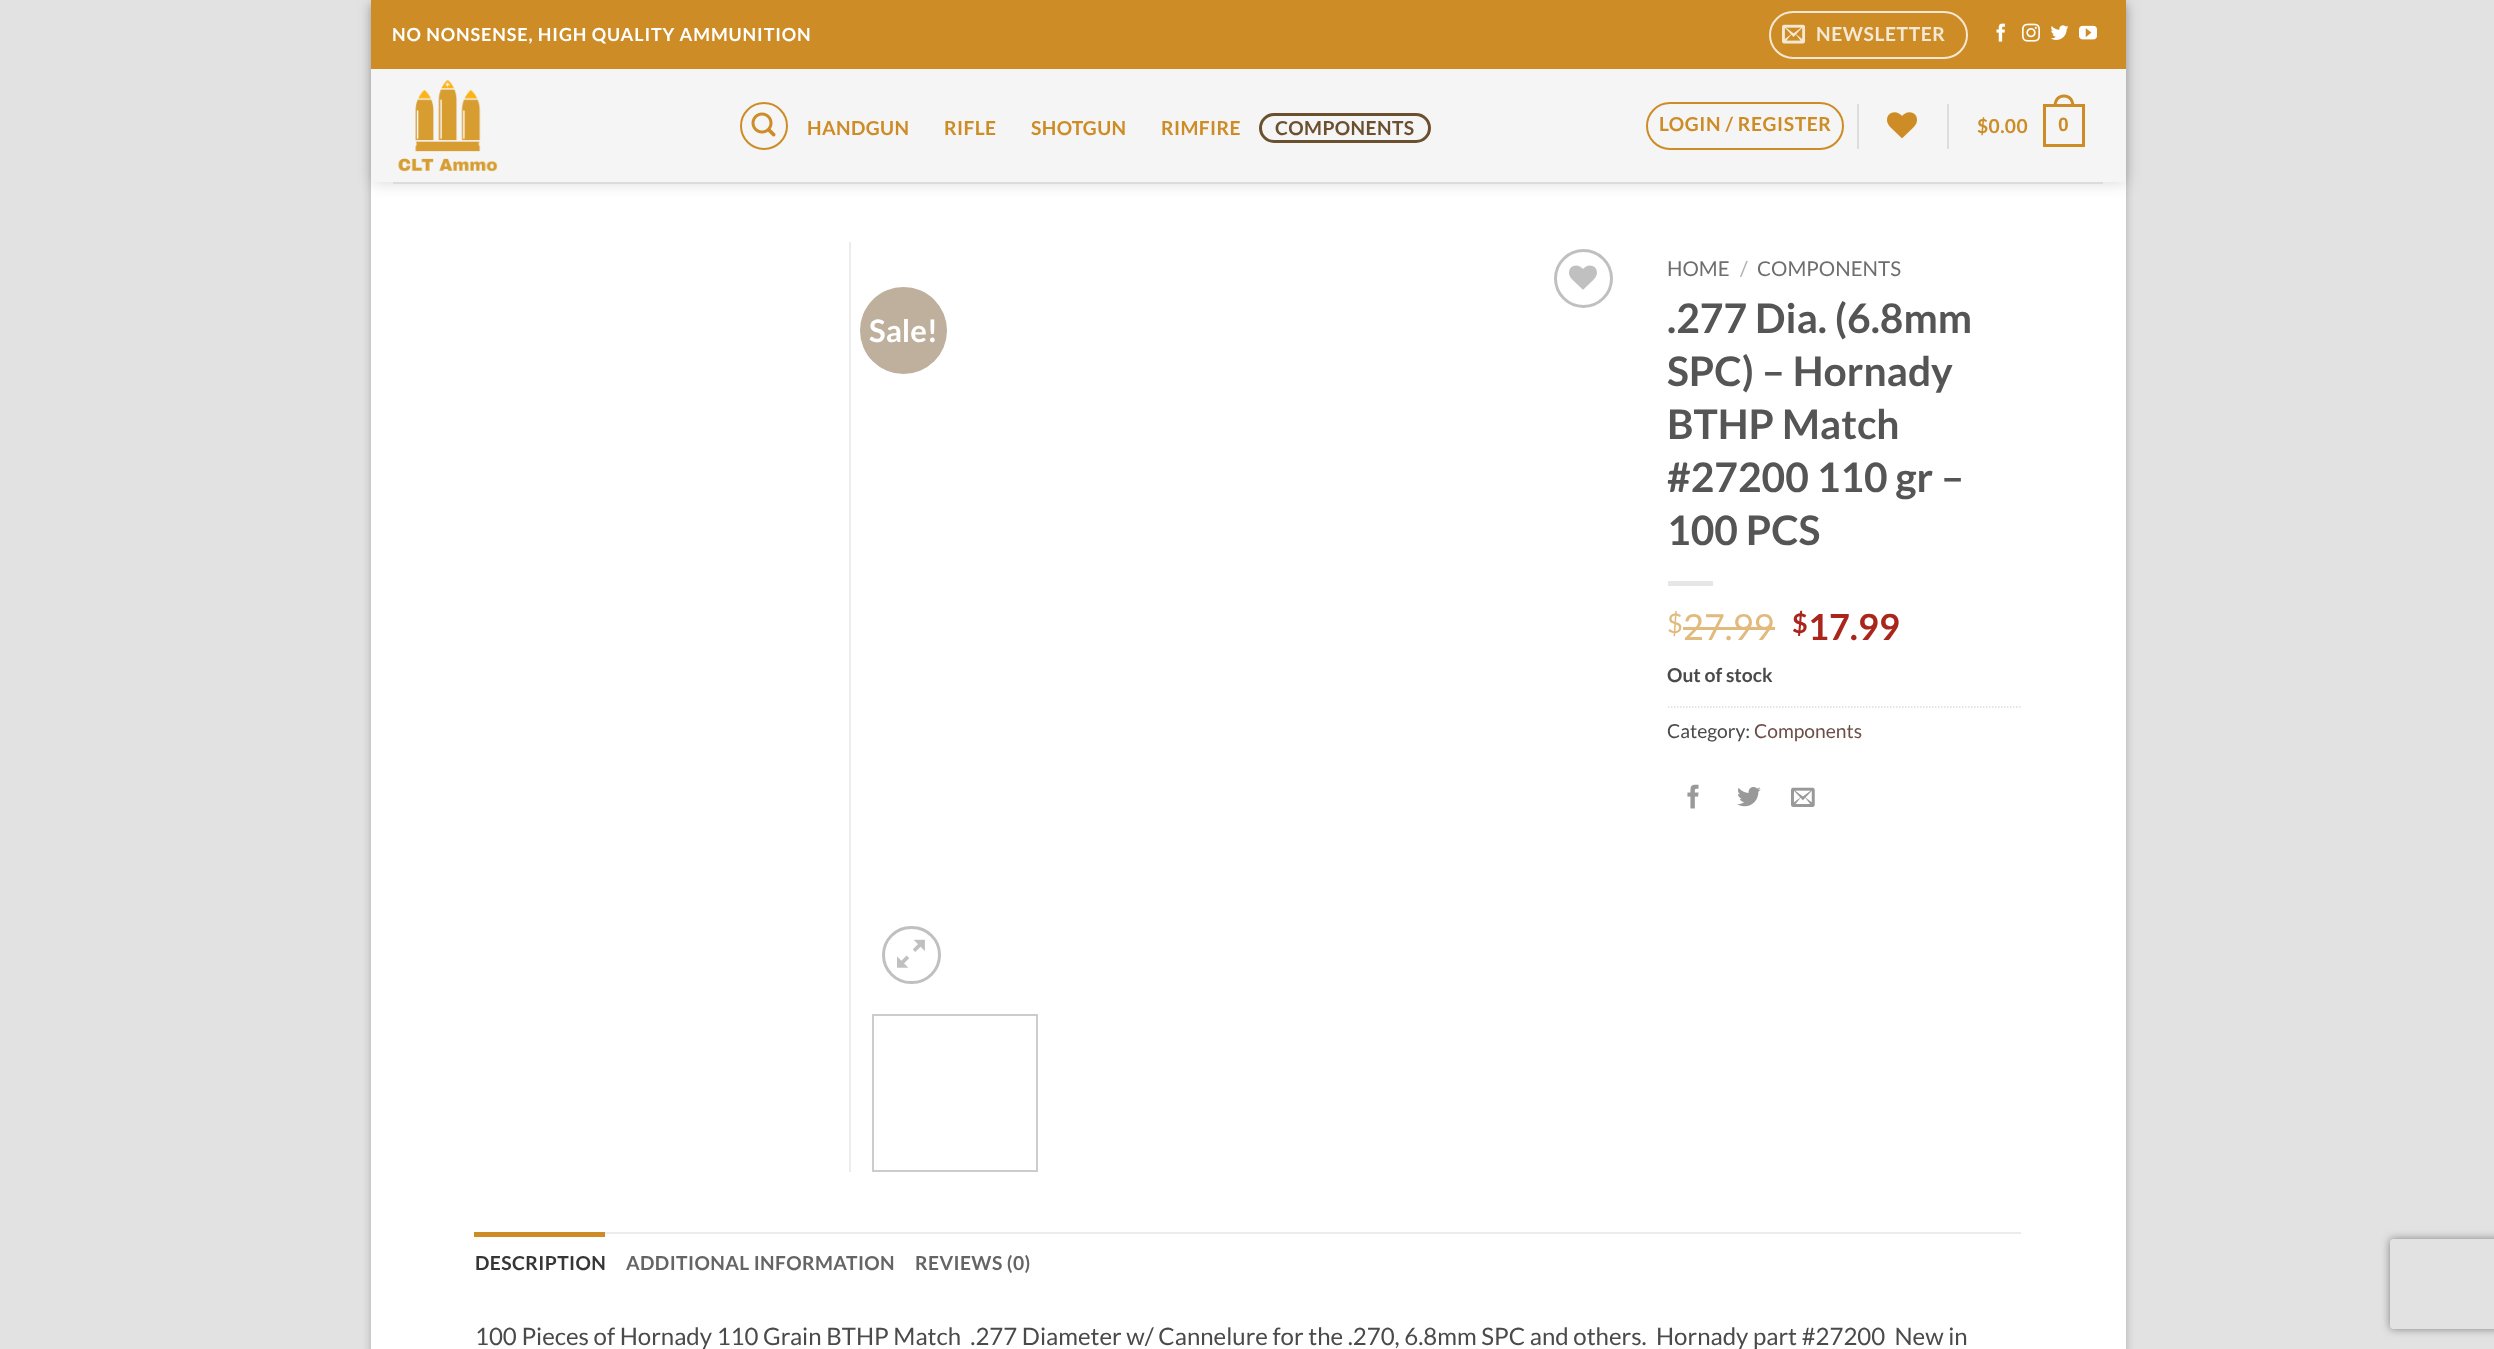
async function draw(canvas) {
	canvas.width = 2494;
	canvas.height = 1349;
	const c = canvas.getContext('2d');
	c.miterLimit = 4;
	c.fontKerning = 'normal';
	async function loadImage(src) {
		const img = new Image();
		img.src = src;
		await img.decode();
		return img;
	}

	c.fillStyle = '#e2e2e2';
	c.fillRect(0, 0, 2494, 1349);
	c.fillStyle = '#0000003b';
	c.filter = 'blur(4.5px)';
	c.beginPath();
	c.rect(371, 5, 1755, 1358);
	c.fill();
	c.filter = 'none';
	c.fillStyle = '#fff';
	c.fillRect(371, 69, 1755, 1280);
	c.save();
	c.beginPath();
	c.moveTo(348, 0);
	c.lineTo(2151, 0);
	c.lineTo(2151, 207);
	c.lineTo(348, 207);
	c.closePath();
	c.moveTo(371, 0);
	c.lineTo(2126, 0);
	c.lineTo(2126, 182);
	c.lineTo(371, 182);
	c.closePath();
	c.clip('evenodd');
	c.fillStyle = '#00000026';
	c.filter = 'blur(7.5px)';
	c.beginPath();
	c.rect(372, 2, 1755, 181);
	c.fill();
	c.filter = 'none';
	c.restore();
	c.fillStyle = '#cd8c26';
	c.fillRect(371, 0, 1755, 69);
	c.letterSpacing = '0.9px';
	c.font = 'bold 18px Lato';
	c.fillStyle = '#fff';
	c.fillText('NO NONSENSE, HIGH QUALITY AMMUNITION', 392, 41);
	c.beginPath();
	c.roundRect(1770, 12, 197, 46, 23);
	c.strokeStyle = '#f5e8d4';
	c.lineWidth = 2;
	c.stroke();
	c.drawImage(await loadImage('img1.png'), 1782, 24, 24, 20);
	c.letterSpacing = '0.6px';
	c.font = 'bold 19.25px Lato';
	c.fillStyle = '#f5e8d4';
	c.fillText('NEWSLETTER', 1816, 41);
	c.drawImage(await loadImage('img2.png'), 1996, 23, 9, 19);
	c.drawImage(await loadImage('img3.png'), 2022, 23, 18, 19);
	c.drawImage(await loadImage('img4.png'), 2050, 25, 19, 15);
	c.drawImage(await loadImage('img5.png'), 2079, 25, 18, 15);
	c.fillStyle = '#f4f4f4e6';
	c.fillRect(371, 69, 1755, 113);
	c.drawImage(await loadImage('img6.png'), 398, 79, 100, 93);
	c.beginPath();
	c.arc(764, 126, 23, 0, 2 * Math.PI);
	c.strokeStyle = '#cd8c26';
	c.stroke();
	c.drawImage(await loadImage('img7.png'), 751, 112, 25, 25);
	c.letterSpacing = '0.4px';
	c.fillStyle = '#cd8c26';
	for (const [text, x, y] of [
		['HANDGUN', 807, 135],
		['RIFLE', 944, 135],
		['SHOTGUN', 1031, 135],
		['RIMFIRE', 1161, 135],
	]) {
		c.fillText(text, x, y);
	}
	c.beginPath();
	c.roundRect(1260.5, 114.5, 169, 27, 13.5);
	c.strokeStyle = '#6a502e';
	c.lineWidth = 3;
	c.stroke();
	c.fillStyle = '#6a502e';
	c.fillText('COMPONENTS', 1275, 135);
	c.beginPath();
	c.roundRect(1647, 103, 196, 46, 23);
	c.strokeStyle = '#cd8c26';
	c.lineWidth = 2;
	c.stroke();
	c.letterSpacing = '0.6px';
	c.fillStyle = '#cd8c26';
	c.fillText('LOGIN / REGISTER', 1659, 131);
	c.fillStyle = '#ddd';
	c.fillRect(1857, 104, 2, 45);
	c.drawImage(await loadImage('img8.png'), 1887, 112, 30, 26);
	c.fillRect(1947, 104, 2, 45);
	c.letterSpacing = '0.4px';
	c.fillStyle = '#cd8c26';
	c.fillText('$0.00', 1977, 133);
	c.lineWidth = 3;
	c.strokeRect(2044.5, 105.5, 39, 40);
	c.beginPath();
	c.moveTo(2064, 94.5);
	c.bezierCurveTo(2071, 94.5, 2074.5, 100, 2074.5, 106.5);
	c.lineTo(2053.5, 106.5);
	c.bezierCurveTo(2053.5, 100, 2057, 94.5, 2064, 94.5);
	c.closePath();
	c.moveTo(2064, 97.5);
	c.bezierCurveTo(2069.5, 97.5, 2071.5, 102, 2071.5, 106.5);
	c.lineTo(2056.5, 106.5);
	c.bezierCurveTo(2056.5, 102, 2058.5, 97.5, 2064, 97.5);
	c.closePath();
	c.fill('evenodd');
	c.font = 'bold 19.25px Liberation Sans';
	c.fillText('0', 2058, 131);
	c.fillStyle = '#dcdcdc';
	c.fillRect(393, 182, 1710, 2);
	c.fillStyle = '#ececec';
	c.fillRect(849, 242, 2, 930);
	c.beginPath();
	c.arc(1583.5, 278.5, 28, 0, 2 * Math.PI);
	c.strokeStyle = '#c0c0c0';
	c.stroke();
	c.drawImage(await loadImage('img9.png'), 1569, 265, 28, 25);
	c.fillStyle = '#beb09c';
	c.beginPath();
	c.arc(903.5, 330.5, 43.5, 0, 2 * Math.PI);
	c.fill();
	c.letterSpacing = '0px';
	c.font = 'bold 31px Lato';
	c.fillStyle = '#fff';
	c.fillText('Sale!', 869, 342);
	c.beginPath();
	c.roundRect(883.5, 927.5, 56, 55, 27.5);
	c.stroke();
	c.drawImage(await loadImage('img10.png'), 897, 939, 28, 29);
	c.strokeStyle = '#ccc';
	c.lineWidth = 2;
	c.strokeRect(873, 1015, 164, 156);
	c.font = '20.5px Lato';
	c.fillStyle = '#6e6e6e';
	c.fillText('HOME', 1667, 276);
	c.fillStyle = '#b2b2b2';
	c.fillText('/', 1740, 276);
	c.fillStyle = '#6e6e6e';
	c.fillText('COMPONENTS', 1757, 276);
	c.font = 'bold 40.75px Lato';
	c.fillStyle = '#555';
	for (const [text, x, y] of [
		['.277 Dia. (6.8mm', 1667, 333],
		['SPC) – Hornady', 1667, 386],
		['BTHP Match', 1667, 439],
		['#27200 110 gr –', 1667, 492],
		['100 PCS', 1667, 545],
	]) {
		c.fillText(text, x, y);
	}
	c.fillStyle = '#e6e6e6';
	c.fillRect(1668, 581, 45, 5);
	c.font = '27px Lato';
	c.fillStyle = '#e1ba7d';
	c.fillText('$', 1667, 633);
	c.font = '36px Lato';
	c.fillText('27.99', 1683, 640);
	c.fillRect(1683, 627, 92, 3);
	c.font = 'bold 27px Lato';
	c.fillStyle = '#aa261c';
	c.fillText('$', 1792, 633);
	c.font = 'bold 36px Lato';
	c.fillText('17.99', 1808, 640);
	c.font = 'bold 19.25px Lato';
	c.fillStyle = '#4a4a4a';
	c.fillText('Out of stock', 1667, 682);
	c.beginPath();
	c.moveTo(1668, 707);
	c.lineTo(2020.5, 707);
	c.strokeStyle = '#ddd';
	c.lineWidth = 1.5;
	c.setLineDash([1.5, 1.5]);
	c.stroke();
	c.font = '19.25px Lato';
	c.fillText('Category:', 1667, 738);
	c.fillStyle = '#6b4e46';
	c.fillText('Components', 1754, 738);
	c.drawImage(await loadImage('img11.png'), 1687, 784, 12, 25);
	c.drawImage(await loadImage('img12.png'), 1737, 787, 24, 20);
	c.drawImage(await loadImage('img13.png'), 1791, 787, 24, 20);
	c.fillStyle = '#ececec';
	c.fillRect(605, 1232, 1416, 2);
	c.fillStyle = '#cd8c26';
	c.fillRect(474, 1232, 131, 5);
	c.letterSpacing = '0.4px';
	c.font = 'bold 19.25px Lato';
	c.fillStyle = '#363636';
	c.fillText('DESCRIPTION', 475, 1270);
	c.fillStyle = '#656565';
	c.fillText('ADDITIONAL INFORMATION', 626, 1270);
	c.fillText('REVIEWS (0)', 915, 1270);
	c.letterSpacing = '0px';
	c.font = '24px Lato';
	c.fillStyle = '#4a4a4a';
	c.fillText('100 Pieces of Hornady 110 Grain BTHP Match  .277 Diameter w/ Cannelure for the .270, 6.8mm SPC and others.  Hornady part #27200  New in', 475, 1345);
	c.save();
	c.beginPath();
	c.moveTo(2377, 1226);
	c.lineTo(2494, 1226);
	c.lineTo(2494, 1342);
	c.lineTo(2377, 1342);
	c.closePath();
	c.moveTo(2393, 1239);
	c.lineTo(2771, 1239);
	c.bezierCurveTo(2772.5, 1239, 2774, 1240.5, 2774, 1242);
	c.lineTo(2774, 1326);
	c.bezierCurveTo(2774, 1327.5, 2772.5, 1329, 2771, 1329);
	c.lineTo(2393, 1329);
	c.bezierCurveTo(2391.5, 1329, 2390, 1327.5, 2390, 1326);
	c.lineTo(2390, 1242);
	c.bezierCurveTo(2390, 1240.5, 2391.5, 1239, 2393, 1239);
	c.closePath();
	c.clip('evenodd');
	c.fillStyle = '#808080';
	c.filter = 'blur(4px)';
	c.beginPath();
	c.roundRect(2390, 1239, 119, 90, 3);
	c.fill();
	c.filter = 'none';
	c.restore();
}

draw(document.querySelector('canvas'));
